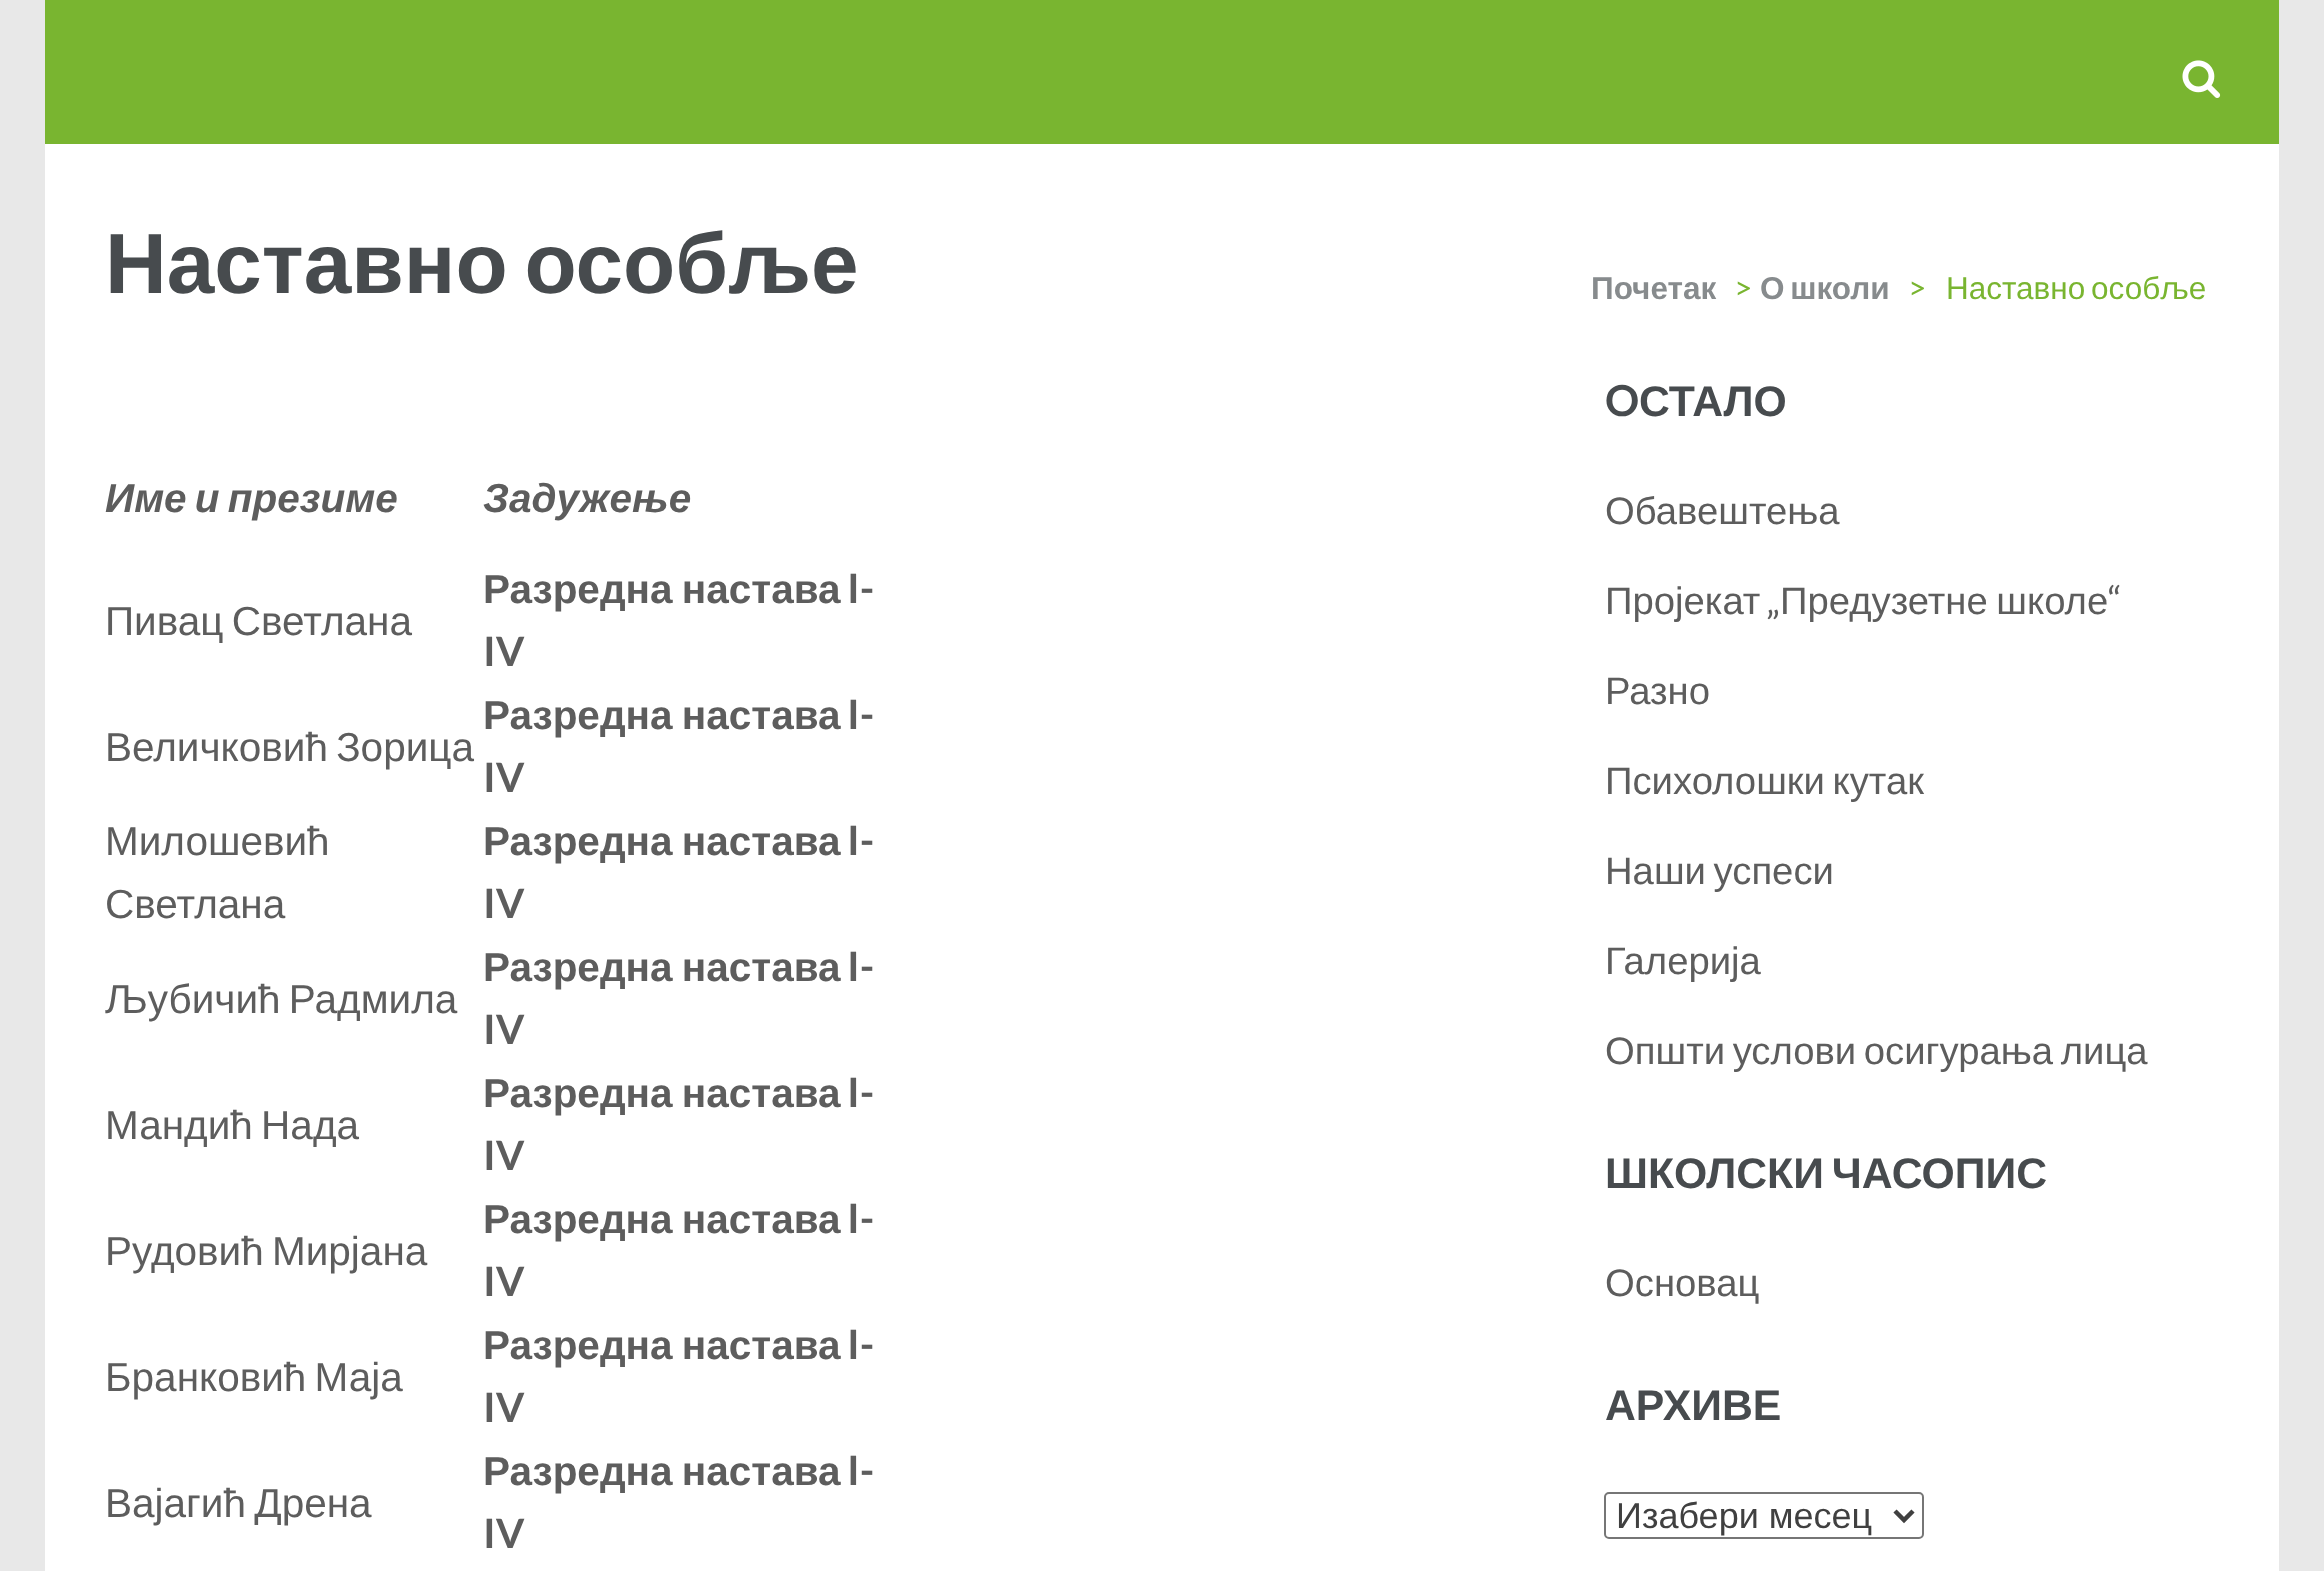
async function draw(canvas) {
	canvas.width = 2324;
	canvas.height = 1571;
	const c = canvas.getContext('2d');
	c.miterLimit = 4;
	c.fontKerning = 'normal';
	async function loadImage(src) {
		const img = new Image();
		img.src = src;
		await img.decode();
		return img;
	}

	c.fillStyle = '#e8e8e8';
	c.fillRect(0, 0, 2324, 1571);
	c.fillStyle = '#fff';
	c.fillRect(45, 144, 2234, 1427);
	c.fillStyle = '#79b530';
	c.fillRect(45, 0, 2234, 144);
	c.drawImage(await loadImage('img1.png'), 2182, 60, 39, 38);
	c.wordSpacing = '-7px';
	c.font = 'bold 85.5px Liberation Sans';
	c.fillStyle = '#474b4e';
	c.fillText('Наставно особље', 105, 293);
	c.wordSpacing = '0px';
	c.font = 'bold 31.5px Liberation Sans';
	c.fillStyle = '#878b8d';
	c.fillText('Почетак', 1591, 299);
	c.font = '31.5px Lato';
	c.fillStyle = '#79b530';
	c.fillText('>', 1734, 299);
	c.wordSpacing = '-3px';
	c.font = 'bold 31.5px Liberation Sans';
	c.fillStyle = '#878b8d';
	c.fillText('О школи', 1760, 299);
	c.wordSpacing = '0px';
	c.font = '31.5px Lato';
	c.fillStyle = '#79b530';
	c.fillText('>', 1908, 299);
	c.wordSpacing = '-3px';
	c.font = '31.5px Liberation Sans';
	c.fillText('Наставно особље', 1946, 299);
	c.font = 'italic bold 40.5px Liberation Sans';
	c.fillStyle = '#5d5d5d';
	c.fillText('Име и презиме', 105, 512);
	c.wordSpacing = '0px';
	c.fillText('Задужење', 483, 512);
	c.wordSpacing = '-3px';
	c.font = '40.5px Liberation Sans';
	c.fillText('Пивац Светлана', 105, 635);
	c.wordSpacing = '-2px';
	c.font = 'bold 40.5px Liberation Sans';
	c.fillText('Разредна настава', 483, 603);
	c.wordSpacing = '0px';
	c.font = 'bold 40.5px Lato';
	c.fillText('I-', 847, 603);
	c.fillText('IV', 483, 666);
	c.wordSpacing = '-3px';
	c.font = '40.5px Liberation Sans';
	c.fillText('Величковић Зорица', 105, 761);
	c.wordSpacing = '-2px';
	c.font = 'bold 40.5px Liberation Sans';
	c.fillText('Разредна настава', 483, 729);
	c.wordSpacing = '0px';
	c.font = 'bold 40.5px Lato';
	c.fillText('I-', 847, 729);
	c.fillText('IV', 483, 792);
	c.font = '40.5px Liberation Sans';
	c.fillText('Милошевић', 105, 855);
	c.fillText('Светлана', 105, 918);
	c.wordSpacing = '-2px';
	c.font = 'bold 40.5px Liberation Sans';
	c.fillText('Разредна настава', 483, 855);
	c.wordSpacing = '0px';
	c.font = 'bold 40.5px Lato';
	c.fillText('I-', 847, 855);
	c.fillText('IV', 483, 918);
	c.wordSpacing = '-3px';
	c.font = '40.5px Liberation Sans';
	c.fillText('Љубичић Радмила', 105, 1013);
	c.wordSpacing = '-2px';
	c.font = 'bold 40.5px Liberation Sans';
	c.fillText('Разредна настава', 483, 981);
	c.wordSpacing = '0px';
	c.font = 'bold 40.5px Lato';
	c.fillText('I-', 847, 981);
	c.fillText('IV', 483, 1044);
	c.wordSpacing = '-3px';
	c.font = '40.5px Liberation Sans';
	c.fillText('Мандић Нада', 105, 1139);
	c.wordSpacing = '-2px';
	c.font = 'bold 40.5px Liberation Sans';
	c.fillText('Разредна настава', 483, 1107);
	c.wordSpacing = '0px';
	c.font = 'bold 40.5px Lato';
	c.fillText('I-', 847, 1107);
	c.fillText('IV', 483, 1170);
	c.wordSpacing = '-3px';
	c.font = '40.5px Liberation Sans';
	c.fillText('Рудовић Мирјана', 105, 1265);
	c.wordSpacing = '-2px';
	c.font = 'bold 40.5px Liberation Sans';
	c.fillText('Разредна настава', 483, 1233);
	c.wordSpacing = '0px';
	c.font = 'bold 40.5px Lato';
	c.fillText('I-', 847, 1233);
	c.fillText('IV', 483, 1296);
	c.wordSpacing = '-3px';
	c.font = '40.5px Liberation Sans';
	c.fillText('Бранковић Маја', 105, 1391);
	c.wordSpacing = '-2px';
	c.font = 'bold 40.5px Liberation Sans';
	c.fillText('Разредна настава', 483, 1359);
	c.wordSpacing = '0px';
	c.font = 'bold 40.5px Lato';
	c.fillText('I-', 847, 1359);
	c.fillText('IV', 483, 1422);
	c.wordSpacing = '-3px';
	c.font = '40.5px Liberation Sans';
	c.fillText('Вајагић Дрена', 105, 1517);
	c.wordSpacing = '-2px';
	c.font = 'bold 40.5px Liberation Sans';
	c.fillText('Разредна настава', 483, 1485);
	c.wordSpacing = '0px';
	c.font = 'bold 40.5px Lato';
	c.fillText('I-', 847, 1485);
	c.fillText('IV', 483, 1548);
	c.font = 'bold 42.75px Lato';
	c.fillStyle = '#474b4e';
	c.fillText('O', 1605, 416);
	c.font = 'bold 42.75px Liberation Sans';
	c.fillText('СТАЛО', 1639, 416);
	c.font = '38.25px Liberation Sans';
	c.fillStyle = '#5d5d5d';
	c.fillText('Обавештења', 1605, 524);
	c.fillText('Пројекат', 1605, 614);
	c.font = '38.25px Lato';
	c.fillText('„', 1766, 614);
	c.wordSpacing = '-2px';
	c.font = '38.25px Liberation Sans';
	c.fillText('Предузетне школе', 1780, 614);
	c.wordSpacing = '0px';
	c.font = '38.25px Lato';
	c.fillText('“', 2108, 614);
	c.font = '38.25px Liberation Sans';
	c.fillText('Разно', 1605, 704);
	c.wordSpacing = '-3px';
	c.fillText('Психолошки кутак', 1605, 794);
	c.fillText('Наши успеси', 1605, 884);
	c.wordSpacing = '0px';
	c.fillText('Галерија', 1605, 974);
	c.wordSpacing = '-3px';
	c.fillText('Општи услови осигурања лица', 1605, 1064);
	c.wordSpacing = '-4px';
	c.font = 'bold 42.75px Liberation Sans';
	c.fillStyle = '#474b4e';
	c.fillText('ШКОЛСКИ ЧАСОПИС', 1605, 1188);
	c.wordSpacing = '0px';
	c.font = '38.25px Liberation Sans';
	c.fillStyle = '#5d5d5d';
	c.fillText('Основац', 1605, 1296);
	c.font = 'bold 42.75px Liberation Sans';
	c.fillStyle = '#474b4e';
	c.fillText('АРХИВЕ', 1605, 1420);
	c.beginPath();
	c.roundRect(1605, 1493, 318, 45, 4);
	c.strokeStyle = '#767676';
	c.lineWidth = 2;
	c.stroke();
	c.beginPath();
	c.moveTo(1895, 1511);
	c.lineTo(1904, 1520);
	c.lineTo(1913, 1511);
	c.strokeStyle = '#404040';
	c.lineWidth = 4.5;
	c.stroke();
	c.font = '36px Liberation Sans';
	c.fillStyle = '#404040';
	c.fillText('Изабери месец', 1616, 1528);
}

draw(document.querySelector('canvas'));
